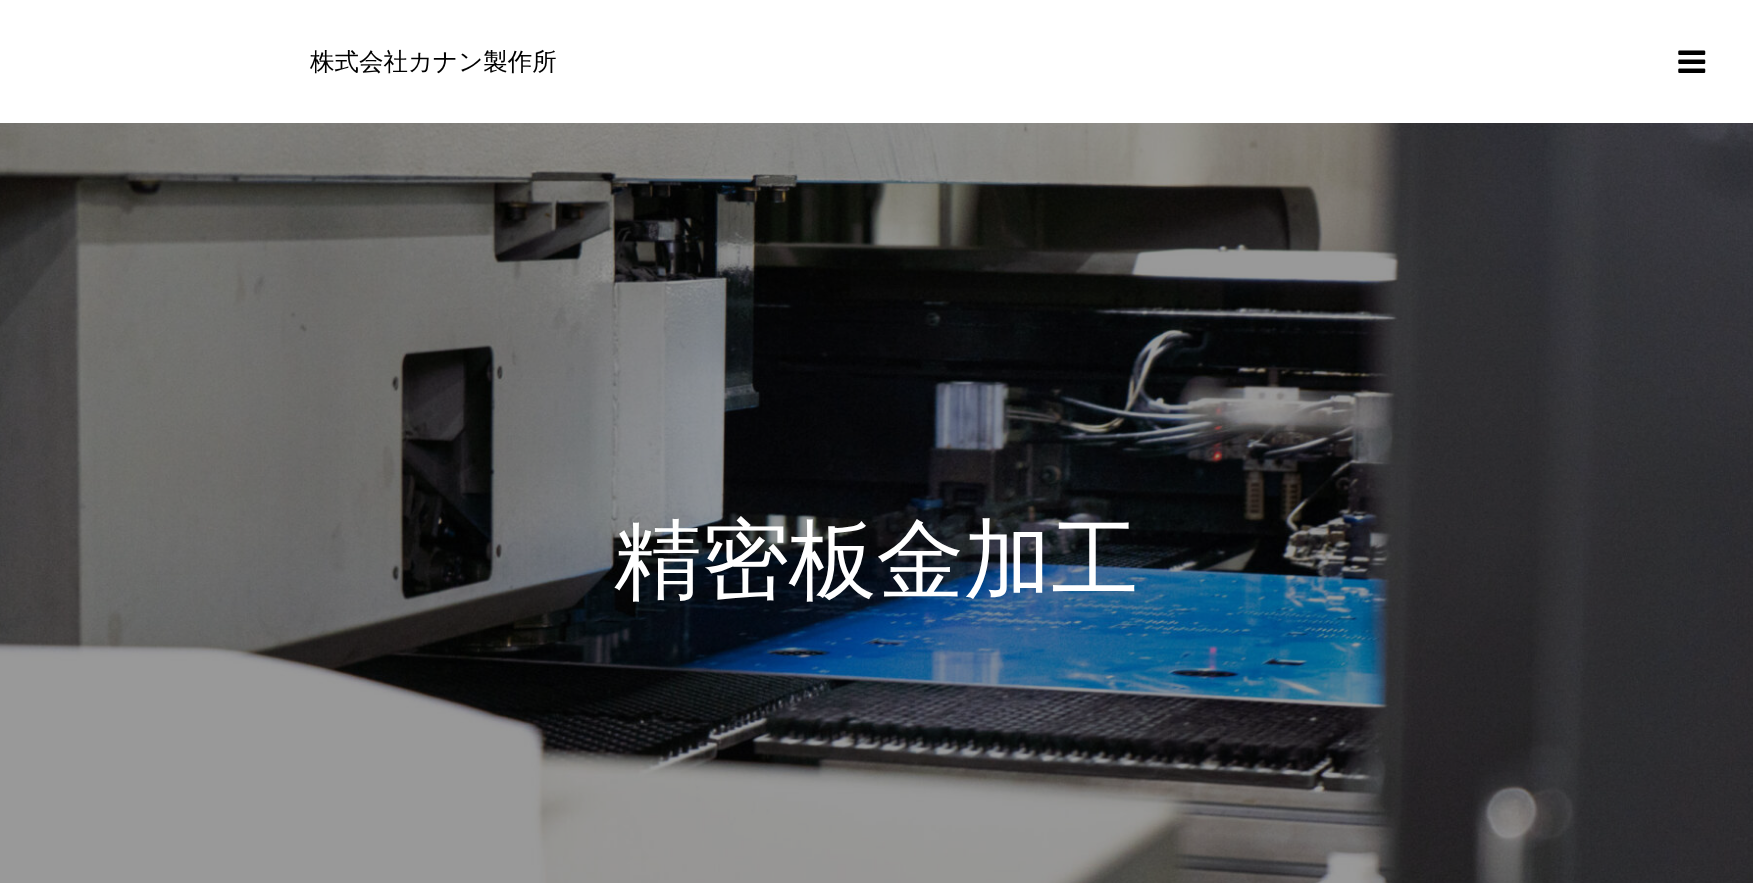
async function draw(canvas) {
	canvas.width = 1753;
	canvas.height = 883;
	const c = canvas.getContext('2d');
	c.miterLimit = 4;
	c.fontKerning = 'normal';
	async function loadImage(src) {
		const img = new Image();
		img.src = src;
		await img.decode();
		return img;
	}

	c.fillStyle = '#fff';
	c.fillRect(0, 0, 1753, 883);
	c.font = '500 24.5px WenQuanYi Zen Hei';
	c.fillStyle = '#000';
	c.fillText('株式会社カナン製作所', 310, 70);
	c.drawImage(await loadImage('img1.png'), 1678, 50, 28, 23);
	c.drawImage(await loadImage('img2.png'), 0, 123, 1753, 760);
	c.font = '500 87.5px WenQuanYi Zen Hei';
	c.fillStyle = '#fff';
	c.fillText('精密板金加工', 614, 590);
}

draw(document.querySelector('canvas'));
